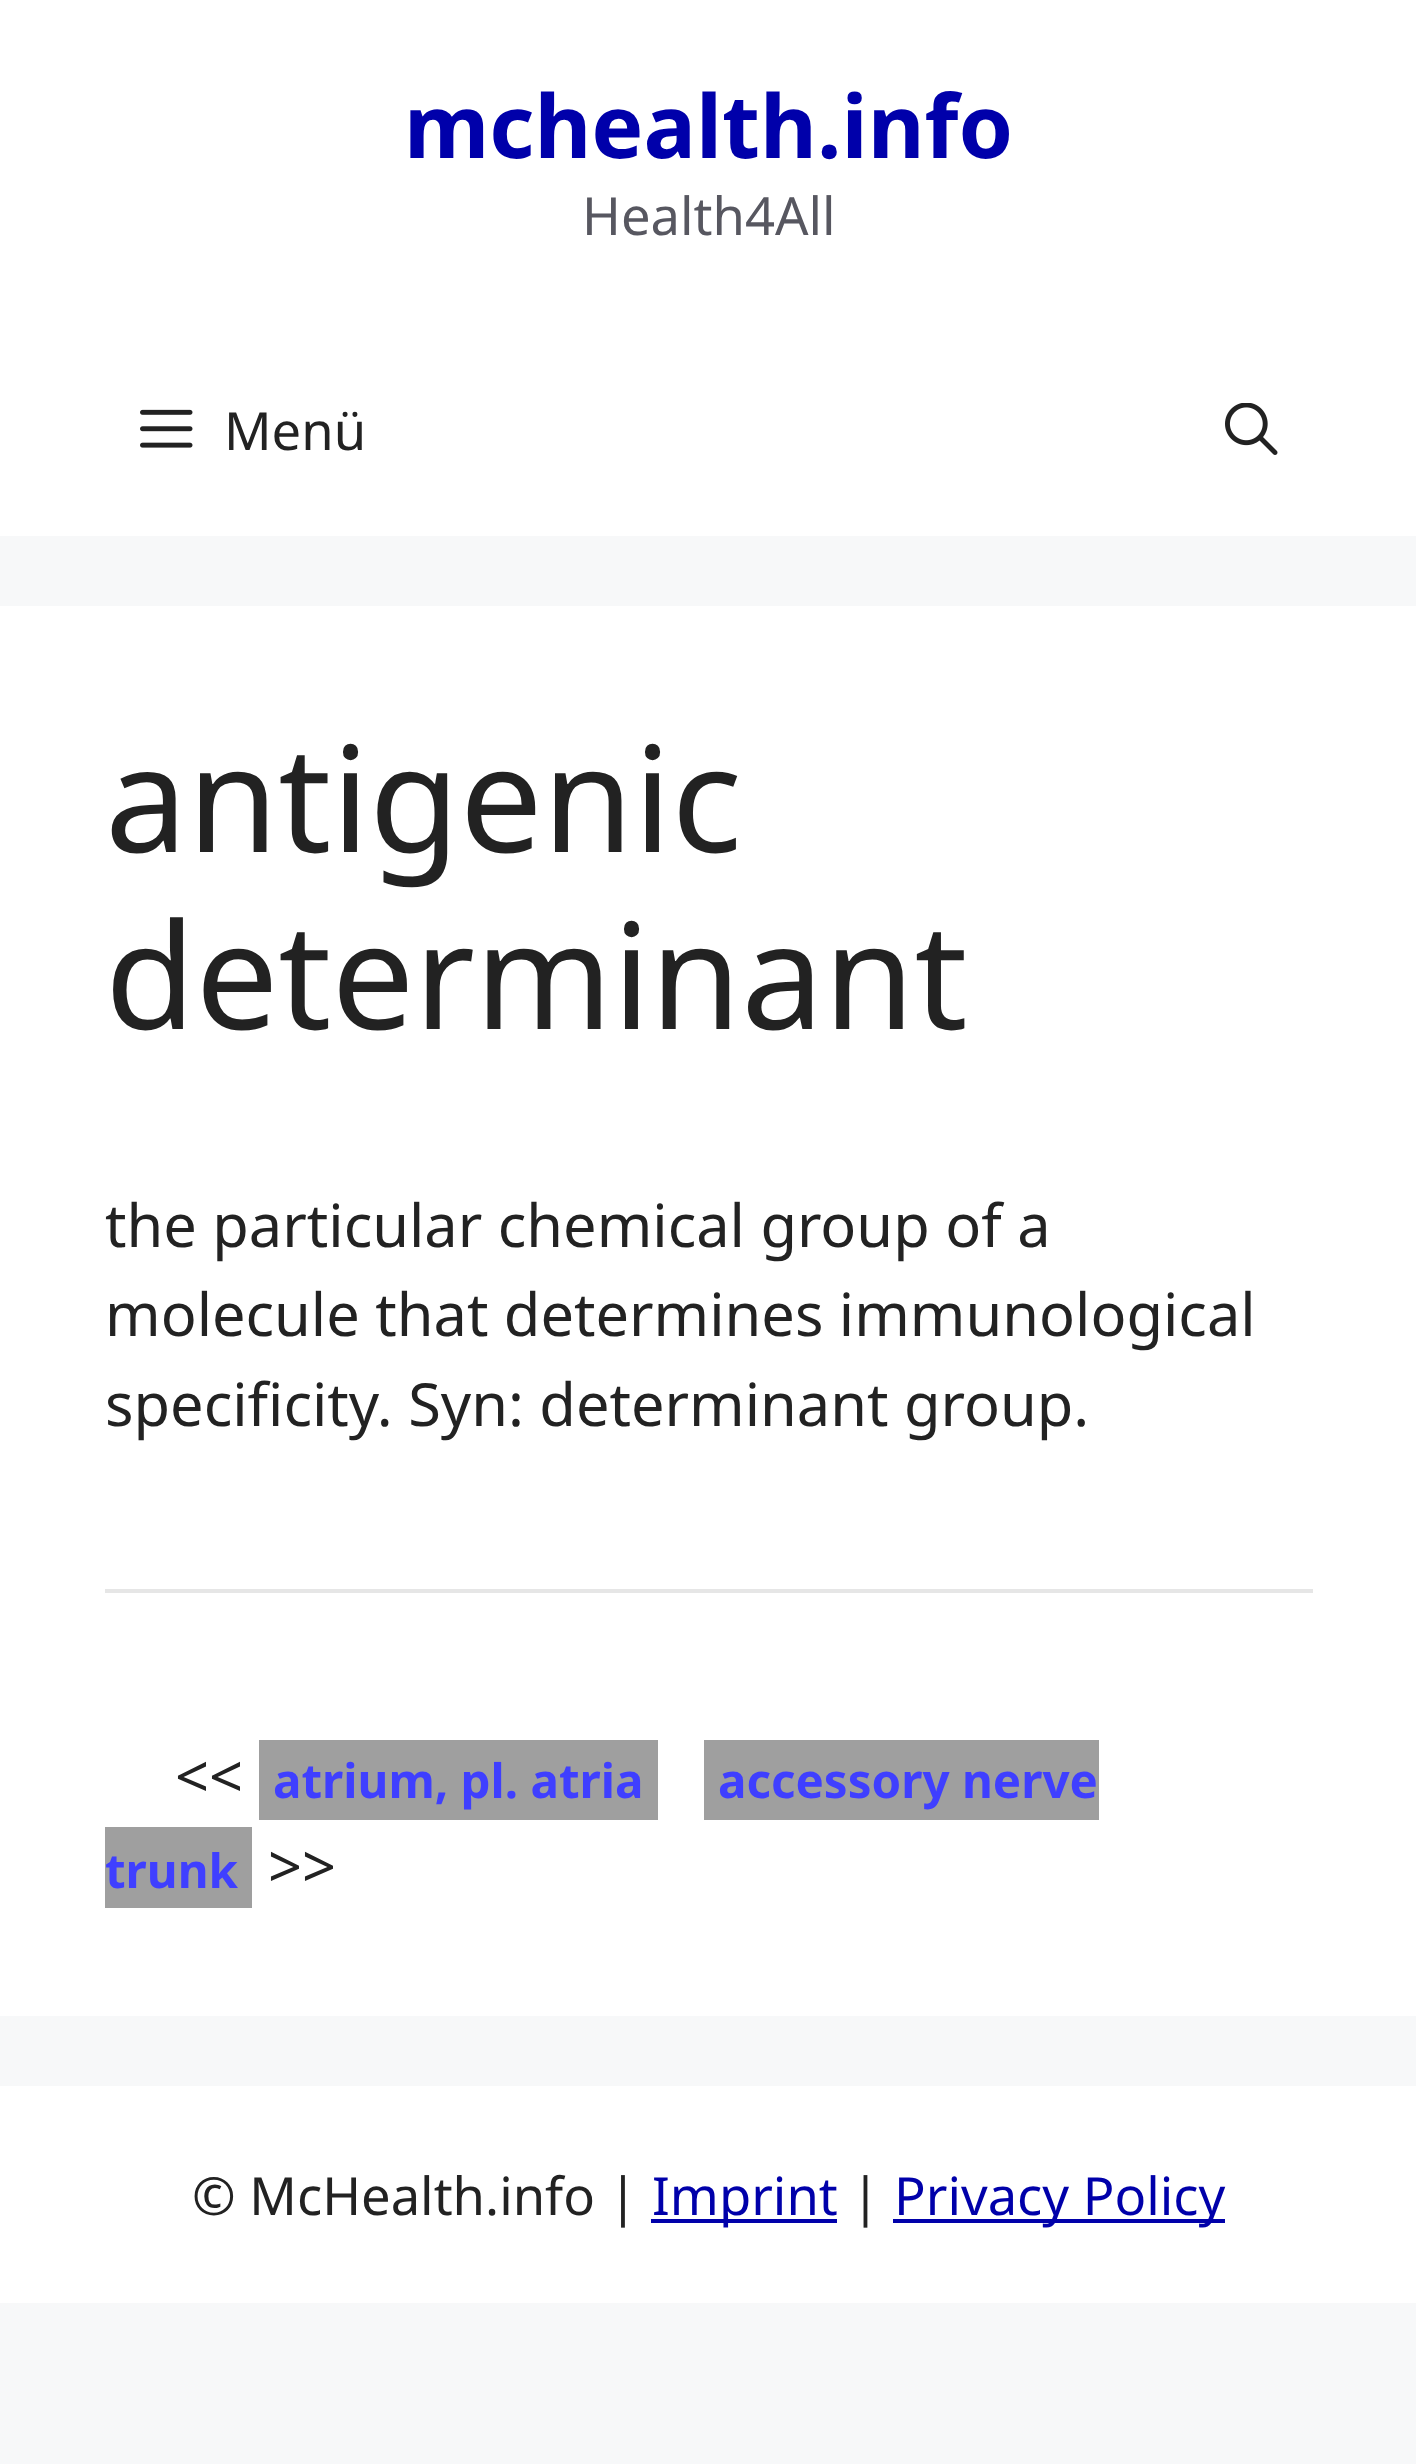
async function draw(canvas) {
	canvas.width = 1416;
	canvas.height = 2464;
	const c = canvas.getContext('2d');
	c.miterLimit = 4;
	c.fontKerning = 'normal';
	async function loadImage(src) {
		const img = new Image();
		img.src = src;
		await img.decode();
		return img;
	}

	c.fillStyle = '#f7f8f9';
	c.fillRect(0, 0, 1416, 2464);
	c.fillStyle = '#fff';
	c.fillRect(0, 0, 1416, 536);
	c.font = 'bold 87.5px Noto Sans';
	c.fillStyle = '#00a';
	c.fillText('mchealth.info', 404, 158);
	c.font = '52.5px Noto Sans';
	c.fillStyle = '#575760';
	c.fillText('Health4All', 582, 235);
	c.drawImage(await loadImage('img1.png'), 140, 409, 53, 39);
	c.fillStyle = '#222';
	c.fillText('Menü', 224, 450);
	c.drawImage(await loadImage('img2.png'), 1225, 403, 53, 52);
	c.fillStyle = '#fff';
	c.fillRect(0, 606, 1416, 1410);
	c.font = '147px Noto Sans';
	c.fillStyle = '#222';
	c.fillText('antigenic', 105, 852);
	c.fillText('determinant', 105, 1029);
	c.font = '59.5px Noto Sans';
	for (const [text, x, y] of [
		['the particular chemical group of a', 105, 1247],
		['molecule that determines immunological', 105, 1336],
		['specificity. Syn: determinant group.', 105, 1426],
	]) {
		c.fillText(text, x, y);
	}
	c.fillStyle = '#e6e6e6';
	c.fillRect(105, 1589, 1208, 4);
	c.fillStyle = '#222';
	c.fillText('<<', 175, 1798);
	c.fillStyle = '#9f9f9f';
	c.fillRect(259, 1740, 399, 80);
	c.font = 'bold 47.5px Noto Sans';
	c.fillStyle = '#3f3fff';
	c.fillText('atrium, pl. atria', 273, 1798);
	c.fillStyle = '#9f9f9f';
	c.fillRect(704, 1740, 395, 80);
	c.fillStyle = '#3f3fff';
	c.fillText('accessory nerve', 718, 1798);
	c.fillStyle = '#9f9f9f';
	c.fillRect(105, 1827, 147, 81);
	c.fillStyle = '#3f3fff';
	c.fillText('trunk', 105, 1888);
	c.font = '59.5px Noto Sans';
	c.fillStyle = '#222';
	c.fillText('>>', 268, 1888);
	c.fillStyle = '#fff';
	c.fillRect(0, 2086, 1416, 217);
	c.font = '52.5px Noto Sans';
	c.fillStyle = '#222';
	c.fillText('© McHealth.info |', 192, 2215);
	c.fillStyle = '#00a';
	c.fillRect(651, 2219, 186, 4);
	c.fillText('Imprint', 652, 2215);
	c.fillStyle = '#222';
	c.fillText('|', 851, 2215);
	c.fillStyle = '#00a';
	c.fillRect(893, 2219, 332, 4);
	c.fillText('Privacy Policy', 894, 2215);
}

draw(document.querySelector('canvas'));
